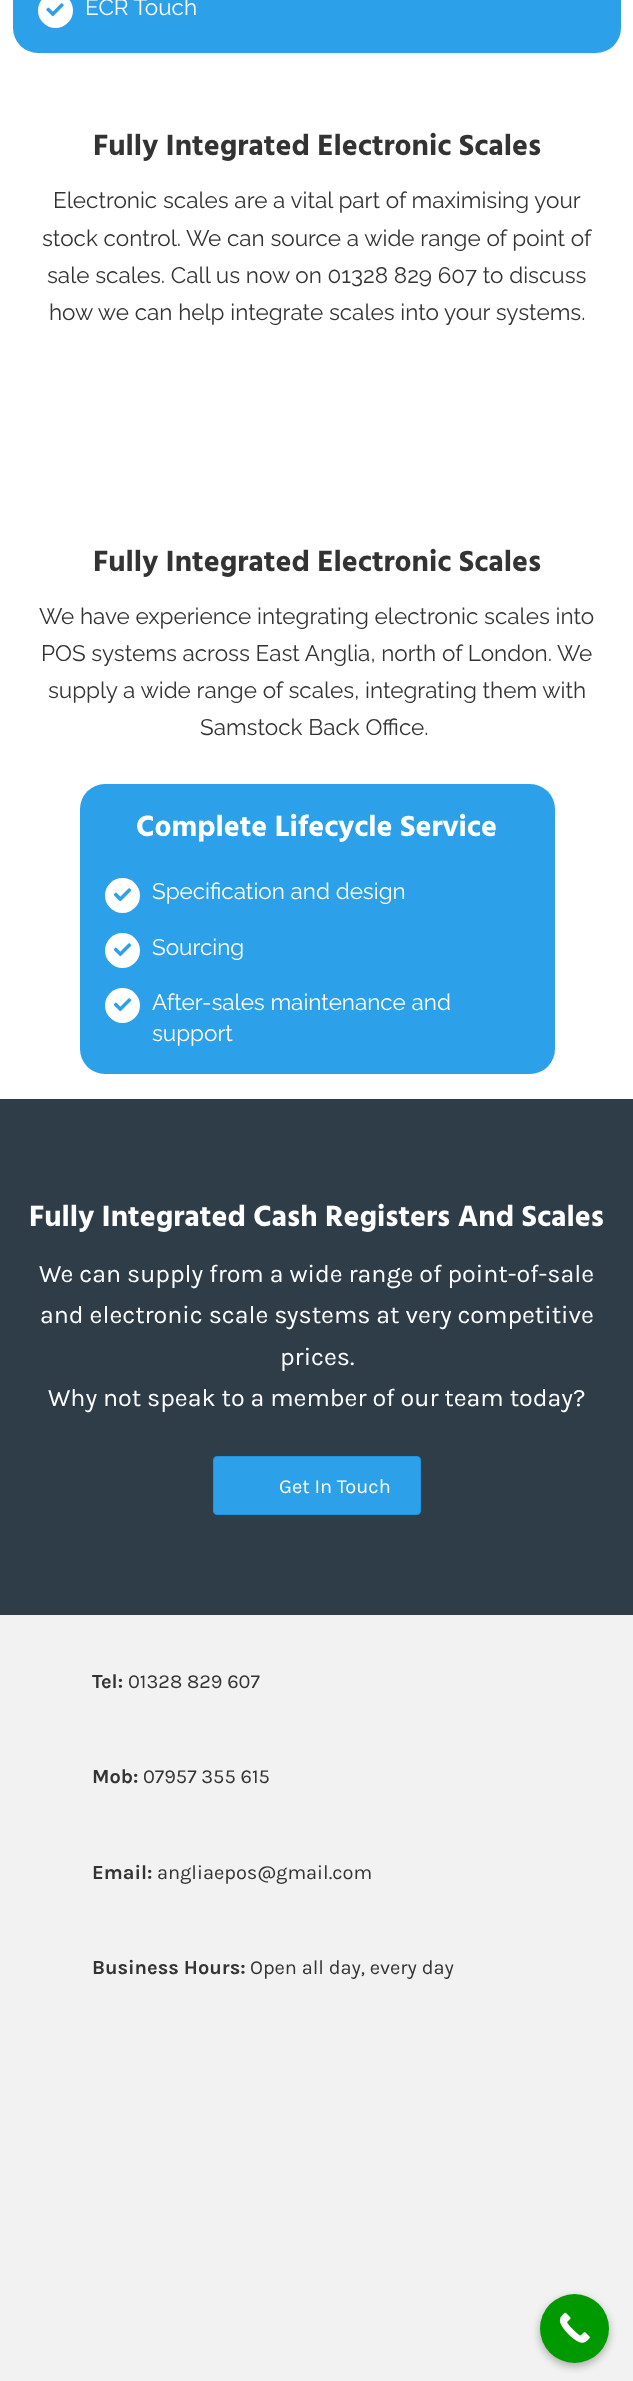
async function draw(canvas) {
	canvas.width = 633;
	canvas.height = 2381;
	const c = canvas.getContext('2d');
	c.miterLimit = 4;
	c.fontKerning = 'normal';
	async function loadImage(src) {
		const img = new Image();
		img.src = src;
		await img.decode();
		return img;
	}

	c.fillStyle = '#f2f2f2';
	c.fillRect(0, 0, 633, 2381);
	c.fillStyle = '#fff';
	c.fillRect(0, 0, 633, 1099);
	c.fillStyle = '#2ca0e8';
	c.beginPath();
	c.roundRect(13, -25, 608, 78, 25);
	c.fill();
	c.fillStyle = '#fff';
	c.beginPath();
	c.arc(55.5, 10.5, 17.5, 0, 2 * Math.PI);
	c.fill();
	c.drawImage(await loadImage('img1.png'), 46, 3, 18, 14);
	c.font = '22.5px Raleway';
	c.fillText('ECR Touch', 85, 15);
	c.font = 'bold 30px Hind';
	c.fillStyle = '#333';
	c.fillText('Fully Integrated Electronic Scales', 93, 155);
	c.font = '22.5px Raleway';
	for (const [text, x, y] of [
		['Electronic scales are a vital part of maximising your', 53, 208],
		['stock control. We can source a wide range of point of', 42, 246],
		['sale scales. Call us now on 01328 829 607 to discuss', 47, 283],
		['how we can help integrate scales into your systems.', 49, 320],
	]) {
		c.fillText(text, x, y);
	}
	c.font = 'bold 30px Hind';
	c.fillText('Fully Integrated Electronic Scales', 93, 571);
	c.font = '22.5px Raleway';
	for (const [text, x, y] of [
		['We have experience integrating electronic scales into', 39, 624],
		['POS systems across East Anglia, north of London. We', 41, 661],
		['supply a wide range of scales, integrating them with', 48, 698],
		['Samstock Back Office.', 200, 735],
	]) {
		c.fillText(text, x, y);
	}
	c.fillStyle = '#2ca0e8';
	c.beginPath();
	c.roundRect(80, 784, 475, 290, 25);
	c.fill();
	c.font = 'bold 30px Hind';
	c.fillStyle = '#fff';
	c.fillText('Complete Lifecycle Service', 136, 836);
	c.beginPath();
	c.arc(122.5, 895.5, 17.5, 0, 2 * Math.PI);
	c.fill();
	c.drawImage(await loadImage('img2.png'), 113, 888, 19, 14);
	c.font = '22.5px Raleway';
	c.fillText('Specification and design', 152, 899);
	c.beginPath();
	c.arc(122.5, 950.5, 17.5, 0, 2 * Math.PI);
	c.fill();
	c.drawImage(await loadImage('img2.png'), 113, 943, 19, 14);
	c.fillText('Sourcing', 152, 955);
	c.beginPath();
	c.arc(122.5, 1005.5, 17.5, 0, 2 * Math.PI);
	c.fill();
	c.drawImage(await loadImage('img2.png'), 113, 998, 19, 14);
	c.fillText('After-sales maintenance and', 152, 1010);
	c.fillText('support', 152, 1041);
	c.fillStyle = '#2f3d49';
	c.fillRect(0, 1099, 633, 516);
	c.font = 'bold 30px Hind';
	c.fillStyle = '#fff';
	c.fillText('Fully Integrated Cash Registers And Scales', 29, 1226);
	c.font = '25px Karla';
	for (const [text, x, y] of [
		['We can supply from a wide range of point-of-sale', 39, 1282],
		['and electronic scale systems at very competitive', 40, 1323],
		['prices.', 280, 1365],
		['Why not speak to a member of our team today?', 48, 1406],
	]) {
		c.fillText(text, x, y);
	}
	c.fillStyle = '#2ca0e8';
	c.beginPath();
	c.roundRect(213.5, 1456.5, 207, 58, 3.5);
	c.fill();
	c.strokeStyle = '#2094dc';
	c.stroke();
	c.font = '20px Karla';
	c.fillStyle = '#fff';
	c.fillText('Get In Touch', 279, 1493);
	c.font = 'bold 20px Karla';
	c.fillStyle = '#333';
	c.fillText('Tel:', 92, 1688);
	c.font = '20px Karla';
	c.fillText('01328 829 607', 128, 1688);
	c.font = 'bold 20px Karla';
	c.fillText('Mob:', 92, 1783);
	c.font = '20px Karla';
	c.fillText('07957 355 615', 143, 1783);
	c.font = 'bold 20px Karla';
	c.fillText('Email:', 92, 1879);
	c.font = '20px Karla';
	c.fillText('angliaepos@gmail.com', 157, 1879);
	c.font = 'bold 20px Karla';
	c.fillText('Business Hours:', 92, 1974);
	c.font = '20px Karla';
	c.fillText('Open all day, every day', 250, 1974);
	c.fillStyle = '#0000004d';
	c.filter = 'blur(4px)';
	c.beginPath();
	c.roundRect(540, 2298, 69, 68, 34);
	c.fill();
	c.filter = 'none';
	c.fillStyle = '#090';
	c.beginPath();
	c.arc(574.5, 2328.5, 34.5, 0, 2 * Math.PI);
	c.fill();
	c.drawImage(await loadImage('img3.png'), 559, 2312, 31, 31);
}

draw(document.querySelector('canvas'));
